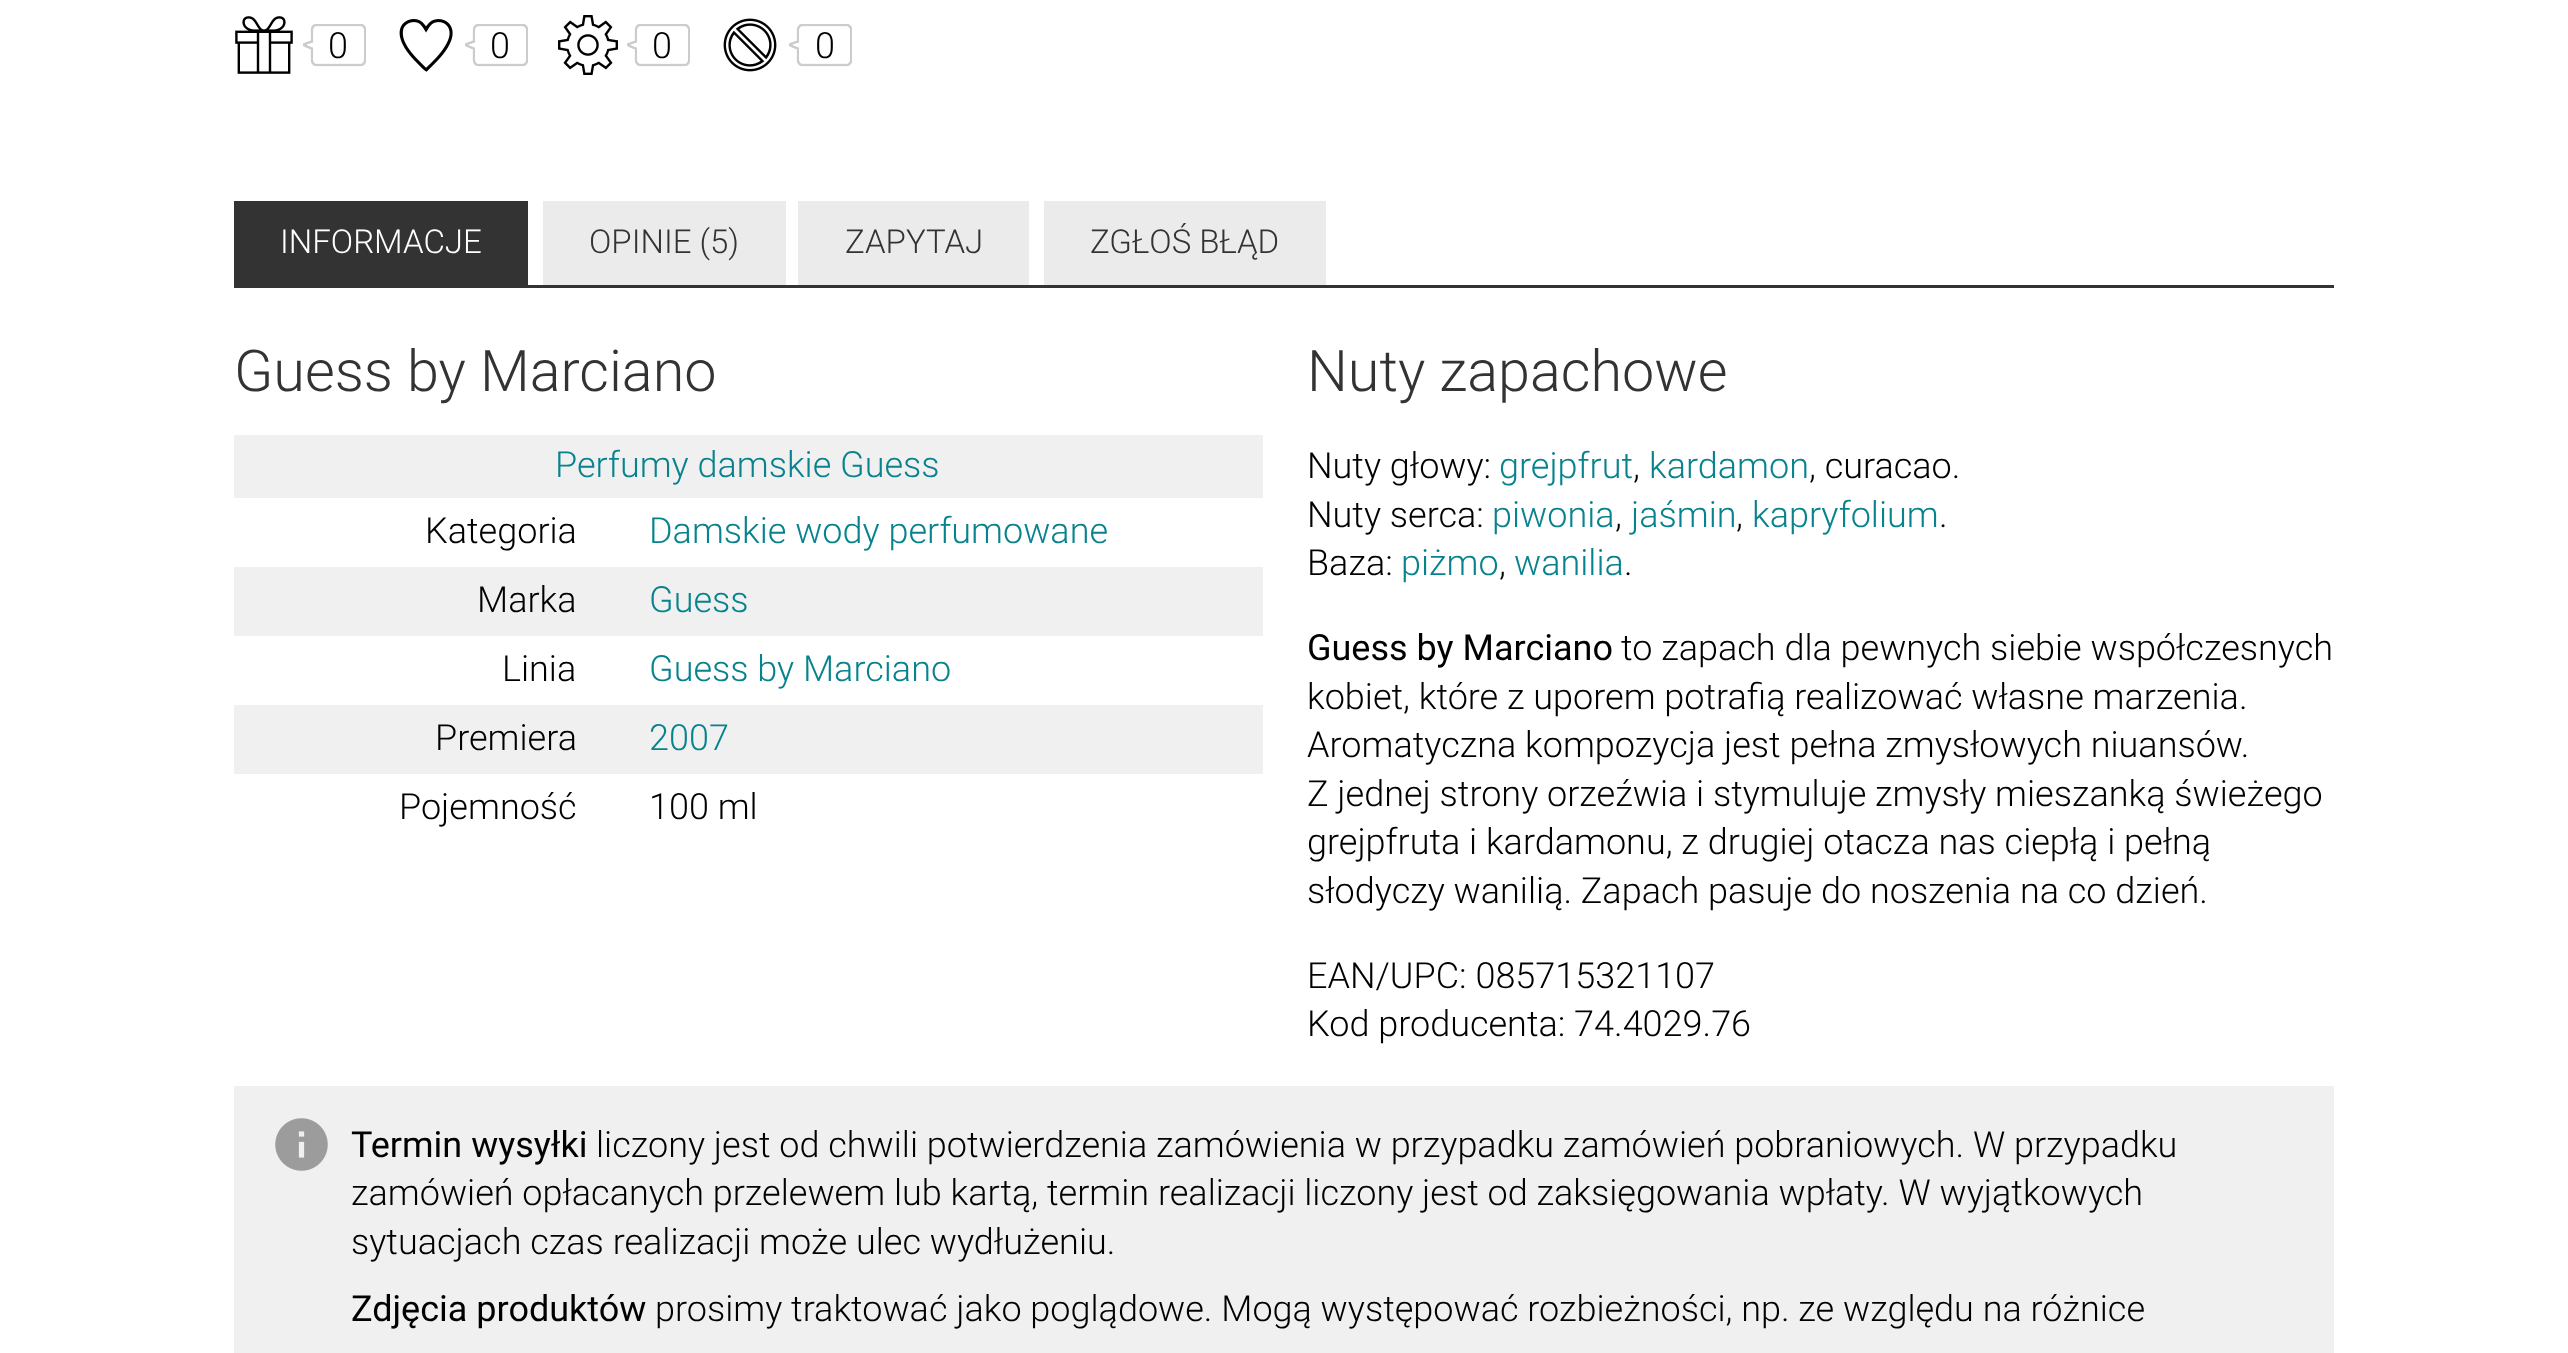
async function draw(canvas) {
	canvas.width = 2568;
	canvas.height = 1353;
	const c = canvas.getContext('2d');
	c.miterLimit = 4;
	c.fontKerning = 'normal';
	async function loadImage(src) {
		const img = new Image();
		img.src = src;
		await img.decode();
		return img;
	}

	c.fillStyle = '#fff';
	c.fillRect(0, 0, 2568, 1353);
	c.drawImage(await loadImage('img1.png'), 235, 16, 58, 58);
	c.drawImage(await loadImage('img2.png'), 303, 24, 63, 43);
	c.font = '300 36px Roboto';
	c.fillStyle = '#000';
	c.fillText('0', 328, 58);
	c.drawImage(await loadImage('img3.png'), 399, 19, 54, 53);
	c.drawImage(await loadImage('img2.png'), 465, 24, 63, 43);
	c.fillText('0', 490, 58);
	c.drawImage(await loadImage('img4.png'), 558, 15, 60, 60);
	c.drawImage(await loadImage('img2.png'), 627, 24, 63, 43);
	c.fillText('0', 652, 58);
	c.drawImage(await loadImage('img5.png'), 723, 18, 54, 54);
	c.drawImage(await loadImage('img2.png'), 789, 24, 63, 43);
	c.fillText('0', 815, 58);
	c.fillStyle = '#333';
	c.fillRect(234, 285, 2100, 3);
	c.fillRect(234, 201, 294, 84);
	c.font = '300 33px Roboto';
	c.fillStyle = '#fff';
	c.fillText('INFORMACJE', 280, 253);
	c.fillStyle = '#ebebeb';
	c.fillRect(543, 201, 243, 84);
	c.fillStyle = '#333';
	c.fillText('OPINIE (5)', 589, 253);
	c.fillStyle = '#ebebeb';
	c.fillRect(798, 201, 231, 84);
	c.fillStyle = '#333';
	c.fillText('ZAPYTAJ', 845, 253);
	c.fillStyle = '#ebebeb';
	c.fillRect(1044, 201, 282, 84);
	c.fillStyle = '#333';
	c.fillText('ZGŁOŚ BŁĄD', 1090, 253);
	c.font = '300 57.5px Roboto';
	c.fillText('Guess by Marciano', 234, 391);
	c.fillStyle = '#f0f0f0';
	c.fillRect(234, 435, 1029, 63);
	c.font = '300 36px Roboto';
	c.fillStyle = '#08838e';
	c.fillText('Perfumy damskie Guess', 555, 477);
	c.fillStyle = '#000';
	c.fillText('Kategoria', 425, 543);
	c.fillStyle = '#08838e';
	c.fillText('Damskie wody perfumowane', 649, 543);
	c.fillStyle = '#f0f0f0';
	c.fillRect(234, 567, 1029, 69);
	c.fillStyle = '#000';
	c.fillText('Marka', 477, 612);
	c.fillStyle = '#08838e';
	c.fillText('Guess', 649, 612);
	c.fillStyle = '#000';
	c.fillText('Linia', 502, 681);
	c.fillStyle = '#08838e';
	c.fillText('Guess by Marciano', 649, 681);
	c.fillStyle = '#f0f0f0';
	c.fillRect(234, 705, 1029, 69);
	c.fillStyle = '#000';
	c.fillText('Premiera', 435, 750);
	c.fillStyle = '#08838e';
	c.fillText('2007', 649, 750);
	c.fillStyle = '#000';
	c.fillText('Pojemność', 399, 819);
	c.fillText('100 ml', 649, 819);
	c.font = '300 57.5px Roboto';
	c.fillStyle = '#333';
	c.fillText('Nuty zapachowe', 1307, 391);
	c.font = '300 36px Roboto';
	c.fillStyle = '#000';
	c.fillText('Nuty głowy:', 1307, 478);
	c.fillStyle = '#08838e';
	c.fillText('grejpfrut', 1499, 478);
	c.fillStyle = '#000';
	c.fillText(',', 1633, 478);
	c.fillStyle = '#08838e';
	c.fillText('kardamon', 1649, 478);
	c.fillStyle = '#000';
	c.fillText(', curacao.', 1809, 478);
	c.fillText('Nuty serca:', 1307, 527);
	c.fillStyle = '#08838e';
	c.fillText('piwonia', 1492, 527);
	c.fillStyle = '#000';
	c.fillText(',', 1615, 527);
	c.fillStyle = '#08838e';
	c.fillText('jaśmin', 1631, 527);
	c.fillStyle = '#000';
	c.fillText(',', 1736, 527);
	c.fillStyle = '#08838e';
	c.fillText('kapryfolium', 1752, 527);
	c.fillStyle = '#000';
	c.fillText('.', 1939, 527);
	c.fillText('Baza:', 1307, 575);
	c.fillStyle = '#08838e';
	c.fillText('piżmo', 1401, 575);
	c.fillStyle = '#000';
	c.fillText(',', 1499, 575);
	c.fillStyle = '#08838e';
	c.fillText('wanilia', 1514, 575);
	c.fillStyle = '#000';
	c.fillText('.', 1624, 575);
	c.font = '36px Roboto';
	c.fillText('Guess by Marciano', 1307, 660);
	c.font = '300 36px Roboto';
	for (const [text, x, y] of [
		['to zapach dla pewnych siebie współczesnych', 1621, 660],
		['kobiet, które z uporem potrafią realizować własne marzenia.', 1307, 709],
		['Aromatyczna kompozycja jest pełna zmysłowych niuansów.', 1307, 757],
		['Z jednej strony orzeźwia i stymuluje zmysły mieszanką świeżego', 1307, 806],
		['grejpfruta i kardamonu, z drugiej otacza nas ciepłą i pełną', 1307, 854],
		['słodyczy wanilią. Zapach pasuje do noszenia na co dzień.', 1307, 903],
		['EAN/UPC: 085715321107', 1307, 988],
		['Kod producenta: 74.4029.76', 1307, 1036],
	]) {
		c.fillText(text, x, y);
	}
	c.fillStyle = '#f0f0f0';
	c.fillRect(234, 1086, 2100, 267);
	c.drawImage(await loadImage('img6.png'), 275, 1118, 53, 53);
	c.font = '36px Roboto';
	c.fillStyle = '#000';
	c.fillText('Termin wysyłki', 351, 1157);
	c.font = '300 36px Roboto';
	for (const [text, x, y] of [
		['liczony jest od chwili potwierdzenia zamówienia w przypadku zamówień pobraniowych. W przypadku', 596, 1157],
		['zamówień opłacanych przelewem lub kartą, termin realizacji liczony jest od zaksięgowania wpłaty. W wyjątkowych', 351, 1205],
		['sytuacjach czas realizacji może ulec wydłużeniu.', 351, 1254],
	]) {
		c.fillText(text, x, y);
	}
	c.font = '36px Roboto';
	c.fillText('Zdjęcia produktów', 351, 1321);
	c.font = '300 36px Roboto';
	c.fillText('prosimy traktować jako poglądowe. Mogą występować rozbieżności, np. ze względu na różnice', 655, 1321);
}

draw(document.querySelector('canvas'));
